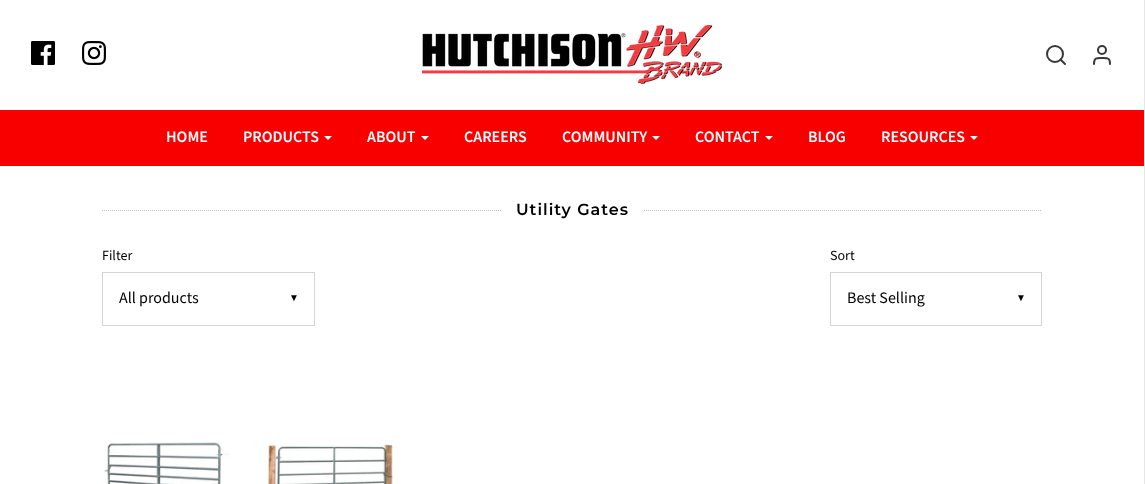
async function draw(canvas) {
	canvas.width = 1145;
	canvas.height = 484;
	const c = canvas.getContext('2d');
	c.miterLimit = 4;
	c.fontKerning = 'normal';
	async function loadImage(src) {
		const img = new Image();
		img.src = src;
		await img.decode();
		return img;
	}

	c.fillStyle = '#fff';
	c.fillRect(0, 0, 1145, 484);
	c.fillStyle = '#e6e6e6';
	c.fillRect(1144, 0, 1, 484);
	c.drawImage(await loadImage('img1.png'), 31, 41, 24, 24);
	c.drawImage(await loadImage('img2.png'), 82, 41, 24, 24);
	c.drawImage(await loadImage('img3.png'), 422, 25, 300, 59);
	c.beginPath();
	c.arc(1055, 54, 8, 0, 2 * Math.PI);
	c.strokeStyle = '#383838';
	c.lineWidth = 2;
	c.stroke();
	c.beginPath();
	c.moveTo(1065, 64);
	c.lineTo(1060.5, 59.5);
	c.moveTo(1110, 64);
	c.bezierCurveTo(1110, 57.5, 1107.5, 58, 1102, 58);
	c.bezierCurveTo(1096.5, 58, 1094, 57.5, 1094, 64);
	c.lineCap = 'round';
	c.lineJoin = 'round';
	c.stroke();
	c.beginPath();
	c.arc(1102, 50, 4, 0, 2 * Math.PI);
	c.stroke();
	c.fillStyle = '#f90000';
	c.fillRect(0, 110, 1144, 56);
	c.font = '600 16px Source Sans Pro';
	c.fillStyle = '#fff';
	c.fillText('HOME', 166, 142);
	c.fillText('PRODUCTS', 243, 142);
	c.beginPath();
	c.moveTo(324, 136);
	c.lineTo(332, 136);
	c.lineTo(328, 140);
	c.closePath();
	c.fill();
	c.fillText('ABOUT', 367, 142);
	c.beginPath();
	c.moveTo(421, 136);
	c.lineTo(429, 136);
	c.lineTo(425, 140);
	c.closePath();
	c.fill();
	c.fillText('CAREERS', 464, 142);
	c.fillText('COMMUNITY', 562, 142);
	c.beginPath();
	c.moveTo(652, 136);
	c.lineTo(660, 136);
	c.lineTo(656, 140);
	c.closePath();
	c.fill();
	c.fillText('CONTACT', 695, 142);
	c.beginPath();
	c.moveTo(765, 136);
	c.lineTo(773, 136);
	c.lineTo(769, 140);
	c.closePath();
	c.fill();
	c.fillText('BLOG', 808, 142);
	c.fillText('RESOURCES', 881, 142);
	c.beginPath();
	c.moveTo(970, 136);
	c.lineTo(978, 136);
	c.lineTo(974, 140);
	c.closePath();
	c.fill();
	c.beginPath();
	c.moveTo(102, 210.5);
	c.lineTo(1042, 210.5);
	c.strokeStyle = '#bfbfbf';
	c.lineWidth = 1;
	c.lineCap = 'butt';
	c.lineJoin = 'miter';
	c.setLineDash([1, 1]);
	c.stroke();
	c.fillRect(502, 210, 141, 1);
	c.letterSpacing = '1px';
	c.font = '600 16px Montserrat';
	c.fillStyle = '#000';
	c.fillText('Utility Gates', 516, 215);
	c.letterSpacing = '0px';
	c.font = '14px Source Sans Pro';
	c.fillText('Filter', 102, 260);
	c.strokeStyle = '#d4d4d4';
	c.setLineDash([]);
	c.strokeRect(102.5, 272.5, 212, 53);
	c.font = '16px Source Sans Pro';
	c.fillText('All products', 119, 303);
	c.font = '10px Liberation Sans';
	c.fillText('▼', 289, 301);
	c.font = '14px Source Sans Pro';
	c.fillText('Sort', 830, 260);
	c.strokeRect(830.5, 272.5, 211, 53);
	c.font = '16px Source Sans Pro';
	c.fillText('Best Selling', 847, 303);
	c.font = '10px Liberation Sans';
	c.fillText('▼', 1016, 301);
	c.drawImage(await loadImage('img4.png'), 104, 441, 126, 43);
	c.drawImage(await loadImage('img5.png'), 267, 444, 126, 40);
}

draw(document.querySelector('canvas'));
